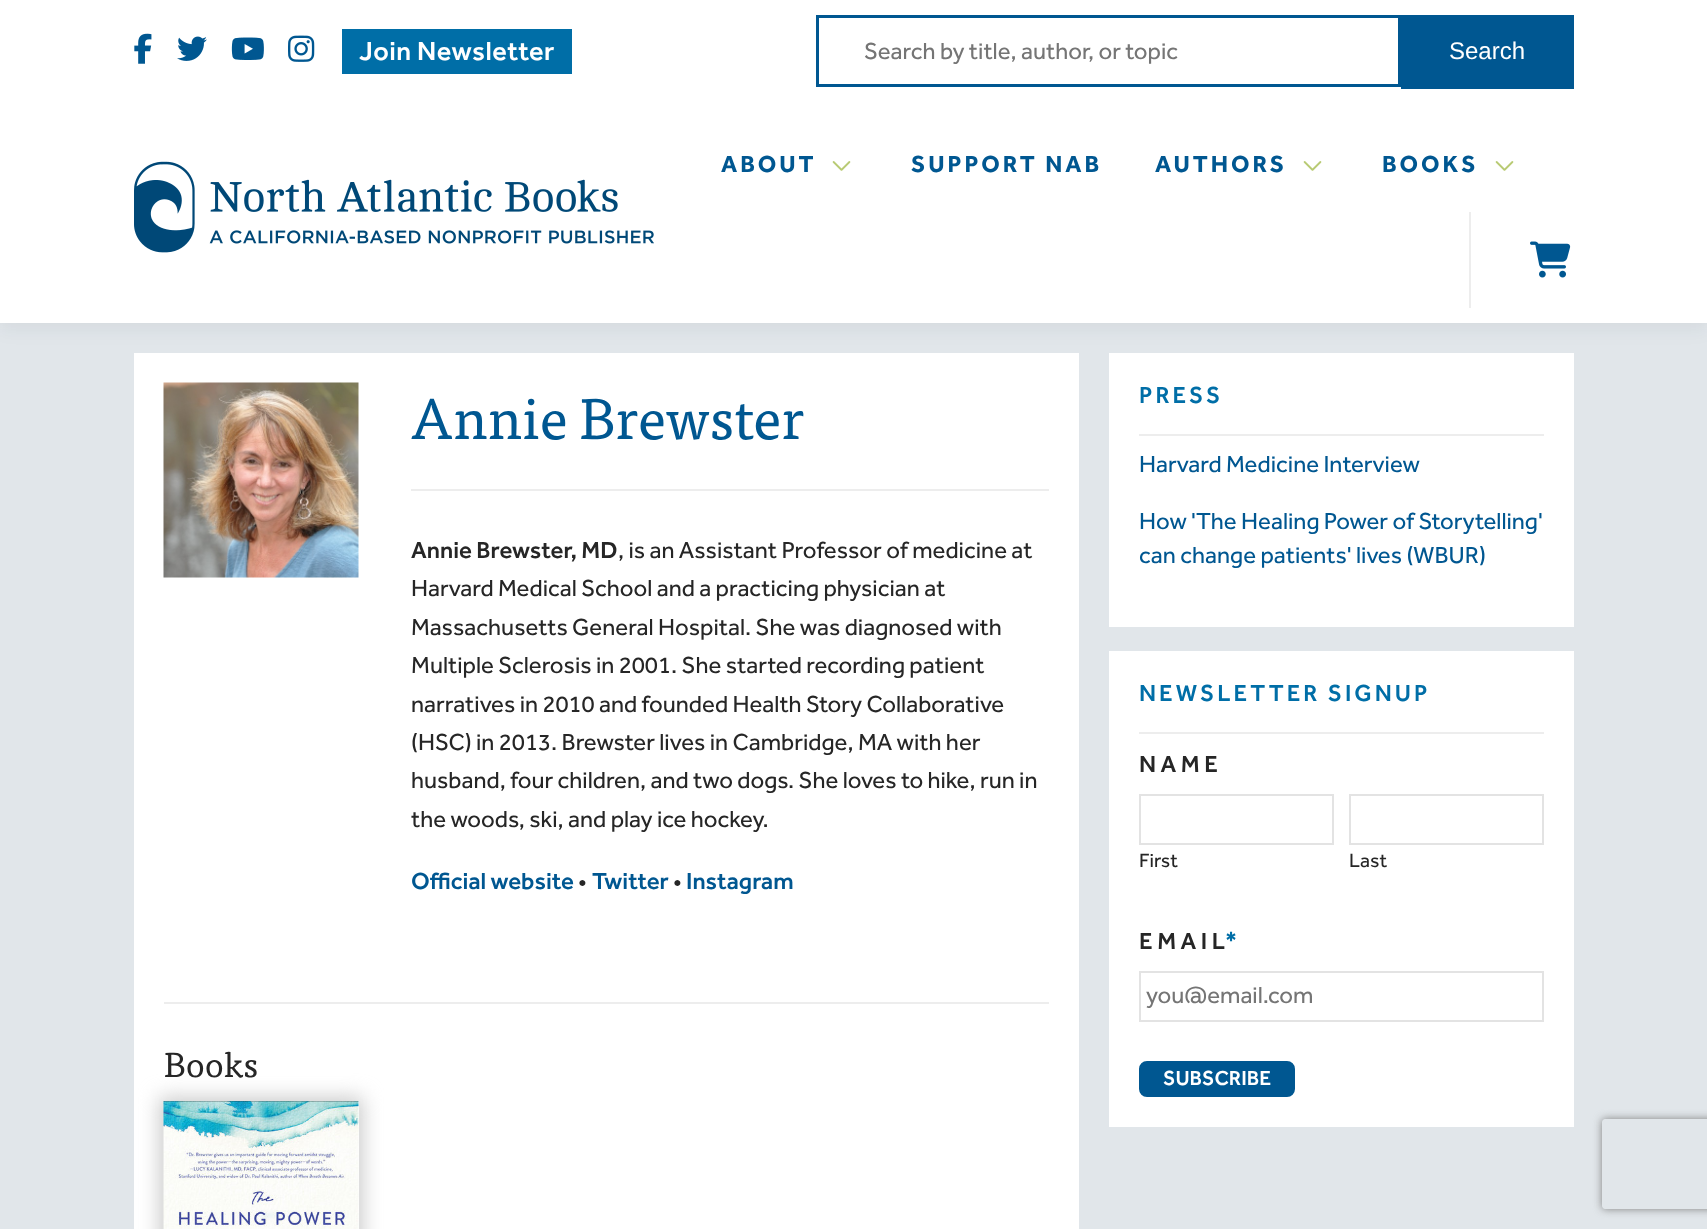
async function draw(canvas) {
	canvas.width = 1707;
	canvas.height = 1229;
	const c = canvas.getContext('2d');
	c.miterLimit = 4;
	c.fontKerning = 'normal';
	async function loadImage(src) {
		const img = new Image();
		img.src = src;
		await img.decode();
		return img;
	}

	c.fillStyle = '#e1e6ea';
	c.fillRect(0, 0, 1707, 1229);
	c.fillStyle = '#fff';
	c.fillRect(134, 353, 945, 876);
	c.fillRect(1109, 353, 465, 274);
	c.fillStyle = '#1024390f';
	c.filter = 'blur(9px)';
	c.beginPath();
	c.rect(0, 6, 1707, 323);
	c.fill();
	c.filter = 'none';
	c.fillStyle = '#fff';
	c.fillRect(0, 0, 1707, 323);
	c.drawImage(await loadImage('img1.png'), 134, 33, 18, 31);
	c.drawImage(await loadImage('img2.png'), 177, 36, 30, 25);
	c.drawImage(await loadImage('img3.png'), 231, 37, 33, 23);
	c.drawImage(await loadImage('img4.png'), 288, 35, 27, 27);
	c.fillStyle = '#006ea7';
	c.fillRect(342, 29, 230, 45);
	c.letterSpacing = '0.5px';
	c.font = '500 27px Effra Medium';
	c.fillStyle = '#fff';
	c.fillText('Join Newsletter', 359, 60);
	c.strokeStyle = '#005791';
	c.lineWidth = 3;
	c.strokeRect(817.5, 16.5, 582, 69);
	c.letterSpacing = '0px';
	c.font = '24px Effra';
	c.fillStyle = '#757575';
	c.fillText('Search by title, author, or topic', 864, 59);
	c.fillStyle = '#005791';
	c.fillRect(1401, 15, 173, 74);
	c.font = '24px Liberation Sans';
	c.fillStyle = '#fff';
	c.fillText('Search', 1449, 59);
	c.drawImage(await loadImage('img5.png'), 134, 161, 520, 92);
	c.letterSpacing = '3px';
	c.font = 'bold 24px Effra';
	c.fillStyle = '#005791';
	c.fillText('ABOUT', 721, 172);
	c.drawImage(await loadImage('img6.png'), 832, 161, 19, 10);
	c.fillText('SUPPORT NAB', 911, 172);
	c.fillText('AUTHORS', 1155, 172);
	c.drawImage(await loadImage('img6.png'), 1303, 161, 19, 10);
	c.fillText('BOOKS', 1382, 172);
	c.drawImage(await loadImage('img6.png'), 1495, 161, 19, 10);
	c.fillStyle = '#ededed';
	c.fillRect(1469, 212, 2, 96);
	c.drawImage(await loadImage('img7.png'), 1530, 241, 41, 37);
	c.drawImage(await loadImage('img8.png'), 163, 382, 196, 196);
	c.letterSpacing = '0px';
	c.font = '57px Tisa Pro';
	c.fillStyle = '#005791';
	c.fillText('Annie Brewster', 411, 439);
	c.fillStyle = '#ededed';
	c.fillRect(411, 489, 638, 2);
	c.font = '500 24px Effra Medium';
	c.fillStyle = '#262626';
	c.fillText('Annie Brewster, MD', 411, 558);
	c.font = '24px Effra';
	for (const [text, x, y] of [
		[', is an Assistant Professor of medicine at', 618, 558],
		['Harvard Medical School and a practicing physician at', 411, 596],
		['Massachusetts General Hospital. She was diagnosed with', 411, 635],
		['Multiple Sclerosis in 2001. She started recording patient', 411, 673],
		['narratives in 2010 and founded Health Story Collaborative', 411, 712],
		['(HSC) in 2013. Brewster lives in Cambridge, MA with her', 411, 750],
		['husband, four children, and two dogs. She loves to hike, run in', 411, 788],
		['the woods, ski, and play ice hockey.', 411, 827],
	]) {
		c.fillText(text, x, y);
	}
	c.font = '500 24px Effra Medium';
	c.fillStyle = '#005791';
	c.fillText('Official website', 411, 889);
	c.font = '24px Effra';
	c.fillStyle = '#262626';
	c.fillText('•', 578, 889);
	c.font = '500 24px Effra Medium';
	c.fillStyle = '#005791';
	c.fillText('Twitter', 592, 889);
	c.font = '24px Effra';
	c.fillStyle = '#262626';
	c.fillText('•', 673, 889);
	c.font = '500 24px Effra Medium';
	c.fillStyle = '#005791';
	c.fillText('Instagram', 686, 889);
	c.fillStyle = '#ededed';
	c.fillRect(164, 1002, 885, 2);
	c.font = '34.5px Tisa Pro';
	c.fillStyle = '#262626';
	c.fillText('Books', 164, 1077);
	c.fillStyle = '#ccc';
	c.filter = 'blur(10px)';
	c.beginPath();
	c.rect(159, 1097, 204, 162);
	c.fill();
	c.filter = 'none';
	c.fillStyle = '#fff';
	c.fillRect(358, 1101, 1, 128);
	c.drawImage(await loadImage('img9.png'), 163, 1101, 196, 128);
	c.fillStyle = '#ededed';
	c.fillRect(1139, 434, 405, 2);
	c.letterSpacing = '3px';
	c.font = '500 24px Effra Medium';
	c.fillStyle = '#006ea7';
	c.fillText('PRESS', 1139, 403);
	c.letterSpacing = '0px';
	c.font = '24px Effra';
	c.fillStyle = '#005791';
	for (const [text, x, y] of [
		['Harvard Medicine Interview', 1139, 472],
		['How \'The Healing Power of Storytelling\'', 1139, 529],
		['can change patients\' lives (WBUR)', 1139, 563],
	]) {
		c.fillText(text, x, y);
	}
	c.fillStyle = '#fff';
	c.fillRect(1109, 651, 465, 476);
	c.fillStyle = '#ededed';
	c.fillRect(1139, 732, 405, 2);
	c.letterSpacing = '3px';
	c.font = '500 24px Effra Medium';
	c.fillStyle = '#006ea7';
	c.fillText('NEWSLETTER SIGNUP', 1139, 701);
	c.letterSpacing = '4.5px';
	c.fillStyle = '#262626';
	c.fillText('NAME', 1139, 772);
	c.strokeStyle = '#e3e3e3';
	c.lineWidth = 2;
	c.strokeRect(1140, 795, 193, 49);
	c.letterSpacing = '0px';
	c.font = '20px Effra';
	c.fillText('First', 1139, 867);
	c.strokeRect(1350, 795, 193, 49);
	c.fillText('Last', 1349, 867);
	c.letterSpacing = '4.5px';
	c.font = '500 24px Effra Medium';
	c.fillText('EMAIL', 1139, 949);
	c.fillStyle = '#006ea7';
	c.fillText('*', 1225, 949);
	c.strokeRect(1140, 972, 403, 49);
	c.letterSpacing = '0px';
	c.font = '24px Effra';
	c.fillStyle = '#757575';
	c.fillText('you@email.com', 1146, 1003);
	c.fillStyle = '#005791';
	c.beginPath();
	c.roundRect(1140.5, 1062.5, 153, 33, 6.5);
	c.fill();
	c.strokeStyle = '#005791';
	c.lineWidth = 3;
	c.stroke();
	c.font = '500 21px Effra Medium';
	c.fillStyle = '#fff';
	c.fillText('SUBSCRIBE', 1163, 1085);
	c.save();
	c.beginPath();
	c.moveTo(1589, 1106);
	c.lineTo(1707, 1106);
	c.lineTo(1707, 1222);
	c.lineTo(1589, 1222);
	c.closePath();
	c.moveTo(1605, 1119);
	c.lineTo(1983, 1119);
	c.bezierCurveTo(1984.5, 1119, 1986, 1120.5, 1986, 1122);
	c.lineTo(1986, 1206);
	c.bezierCurveTo(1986, 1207.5, 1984.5, 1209, 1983, 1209);
	c.lineTo(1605, 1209);
	c.bezierCurveTo(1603.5, 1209, 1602, 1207.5, 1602, 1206);
	c.lineTo(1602, 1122);
	c.bezierCurveTo(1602, 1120.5, 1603.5, 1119, 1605, 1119);
	c.closePath();
	c.clip('evenodd');
	c.fillStyle = '#808080';
	c.filter = 'blur(4px)';
	c.beginPath();
	c.roundRect(1602, 1119, 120, 90, 3);
	c.fill();
	c.filter = 'none';
	c.restore();
}

draw(document.querySelector('canvas'));
